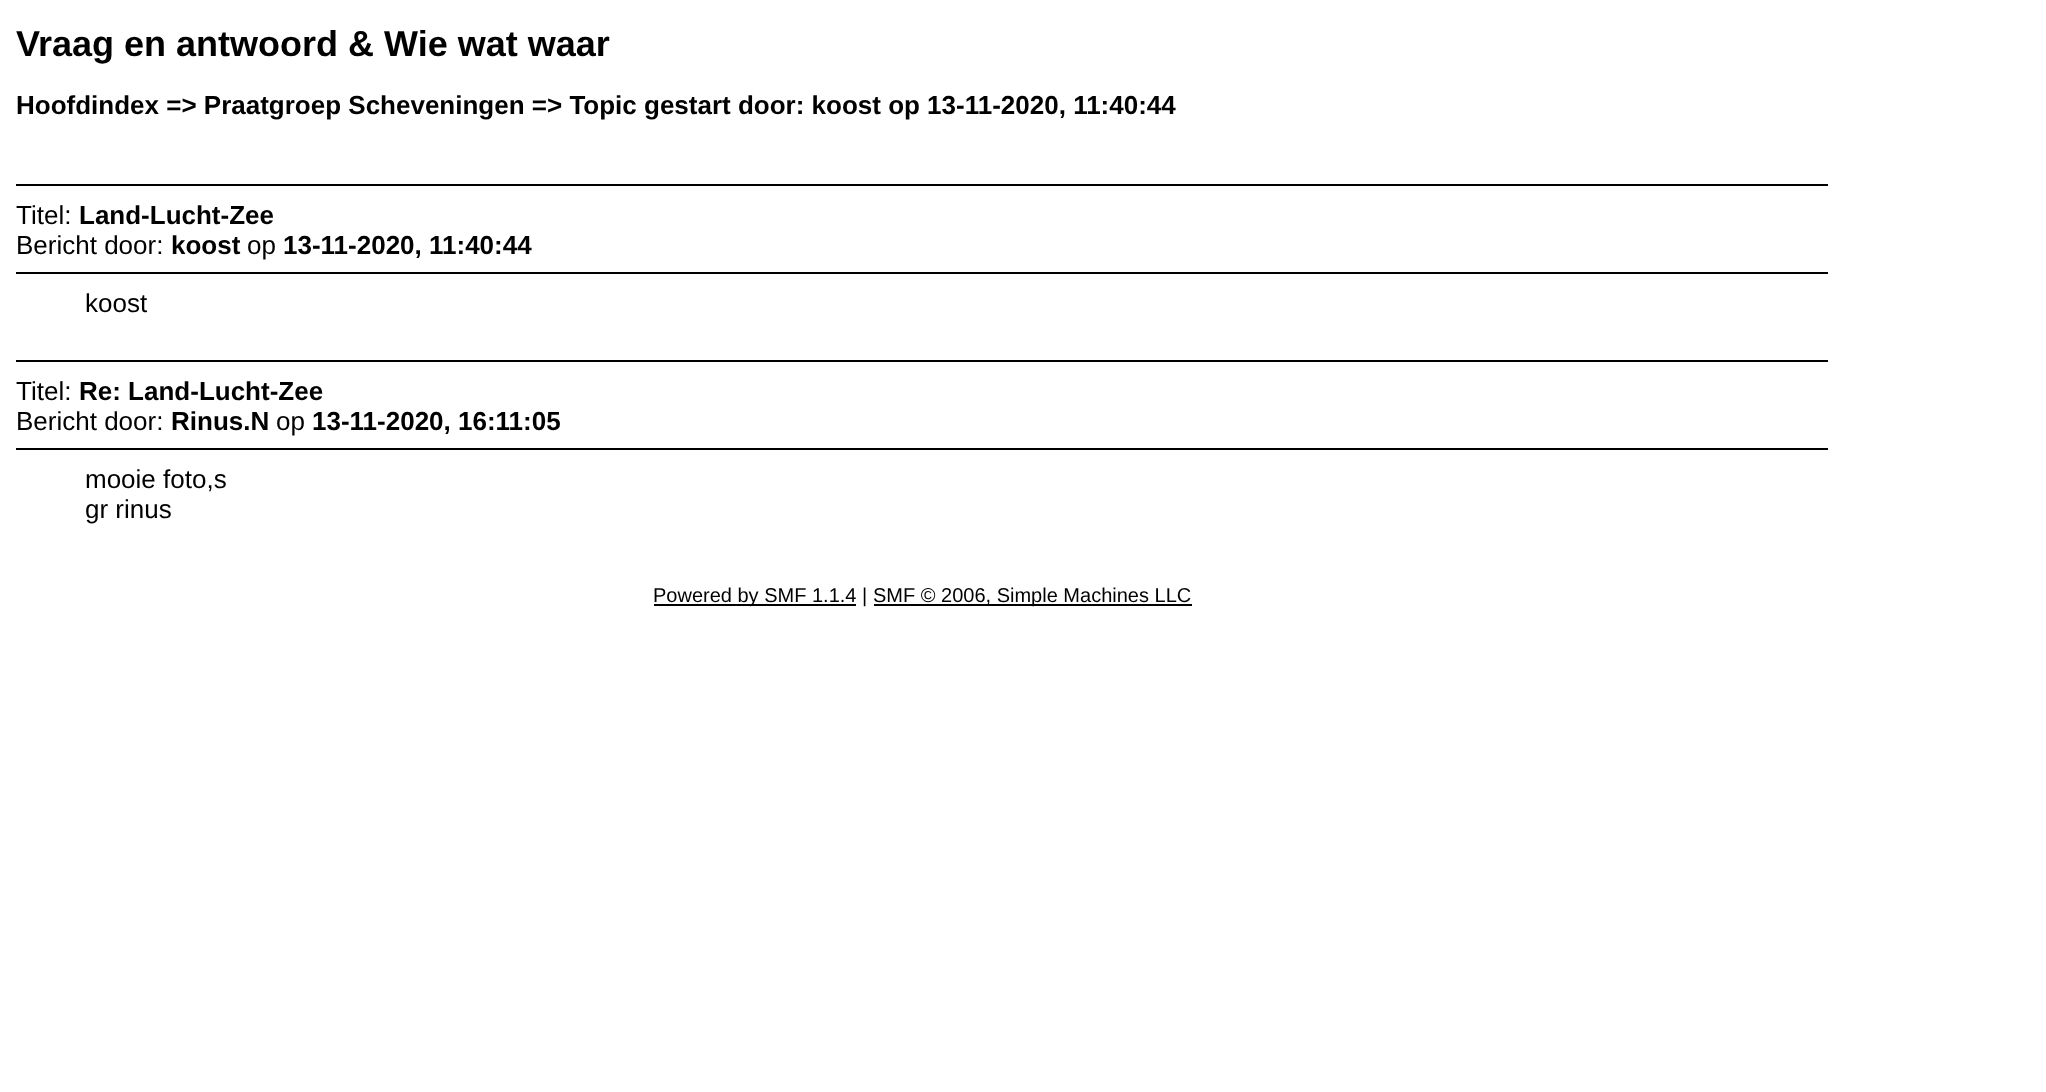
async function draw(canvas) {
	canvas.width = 2046;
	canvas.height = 1092;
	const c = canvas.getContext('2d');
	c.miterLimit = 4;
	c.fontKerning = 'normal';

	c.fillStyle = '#fff';
	c.fillRect(0, 0, 2046, 1092);
	c.font = 'bold 36px Liberation Sans';
	c.fillStyle = '#000';
	c.fillText('Vraag en antwoord & Wie wat waar', 16, 56);
	c.font = 'bold 26px Liberation Sans';
	c.fillText('Hoofdindex => Praatgroep Scheveningen => Topic gestart door: koost op 13-11-2020, 11:40:44', 16, 114);
	c.fillRect(16, 184, 1812, 2);
	c.font = '26px Liberation Sans';
	c.fillText('Titel:', 16, 224);
	c.font = 'bold 26px Liberation Sans';
	c.fillText('Land-Lucht-Zee', 79, 224);
	c.font = '26px Liberation Sans';
	c.fillText('Bericht door:', 16, 254);
	c.font = 'bold 26px Liberation Sans';
	c.fillText('koost', 171, 254);
	c.font = '26px Liberation Sans';
	c.fillText('op', 247, 254);
	c.font = 'bold 26px Liberation Sans';
	c.fillText('13-11-2020, 11:40:44', 283, 254);
	c.fillRect(16, 272, 1812, 2);
	c.font = '26px Liberation Sans';
	c.fillText('koost', 85, 312);
	c.fillRect(16, 360, 1812, 2);
	c.fillText('Titel:', 16, 400);
	c.font = 'bold 26px Liberation Sans';
	c.fillText('Re: Land-Lucht-Zee', 79, 400);
	c.font = '26px Liberation Sans';
	c.fillText('Bericht door:', 16, 430);
	c.font = 'bold 26px Liberation Sans';
	c.fillText('Rinus.N', 171, 430);
	c.font = '26px Liberation Sans';
	c.fillText('op', 276, 430);
	c.font = 'bold 26px Liberation Sans';
	c.fillText('13-11-2020, 16:11:05', 312, 430);
	c.fillRect(16, 448, 1812, 2);
	c.font = '26px Liberation Sans';
	c.fillText('mooie foto,s', 85, 488);
	c.fillText('gr rinus', 85, 518);
	c.fillRect(654, 604, 202, 2);
	c.font = '20px Liberation Sans';
	c.fillText('Powered by SMF 1.1.4 |', 653, 602);
	c.fillRect(874, 604, 318, 2);
	c.fillText('SMF © 2006, Simple Machines LLC', 873, 602);
}

draw(document.querySelector('canvas'));
